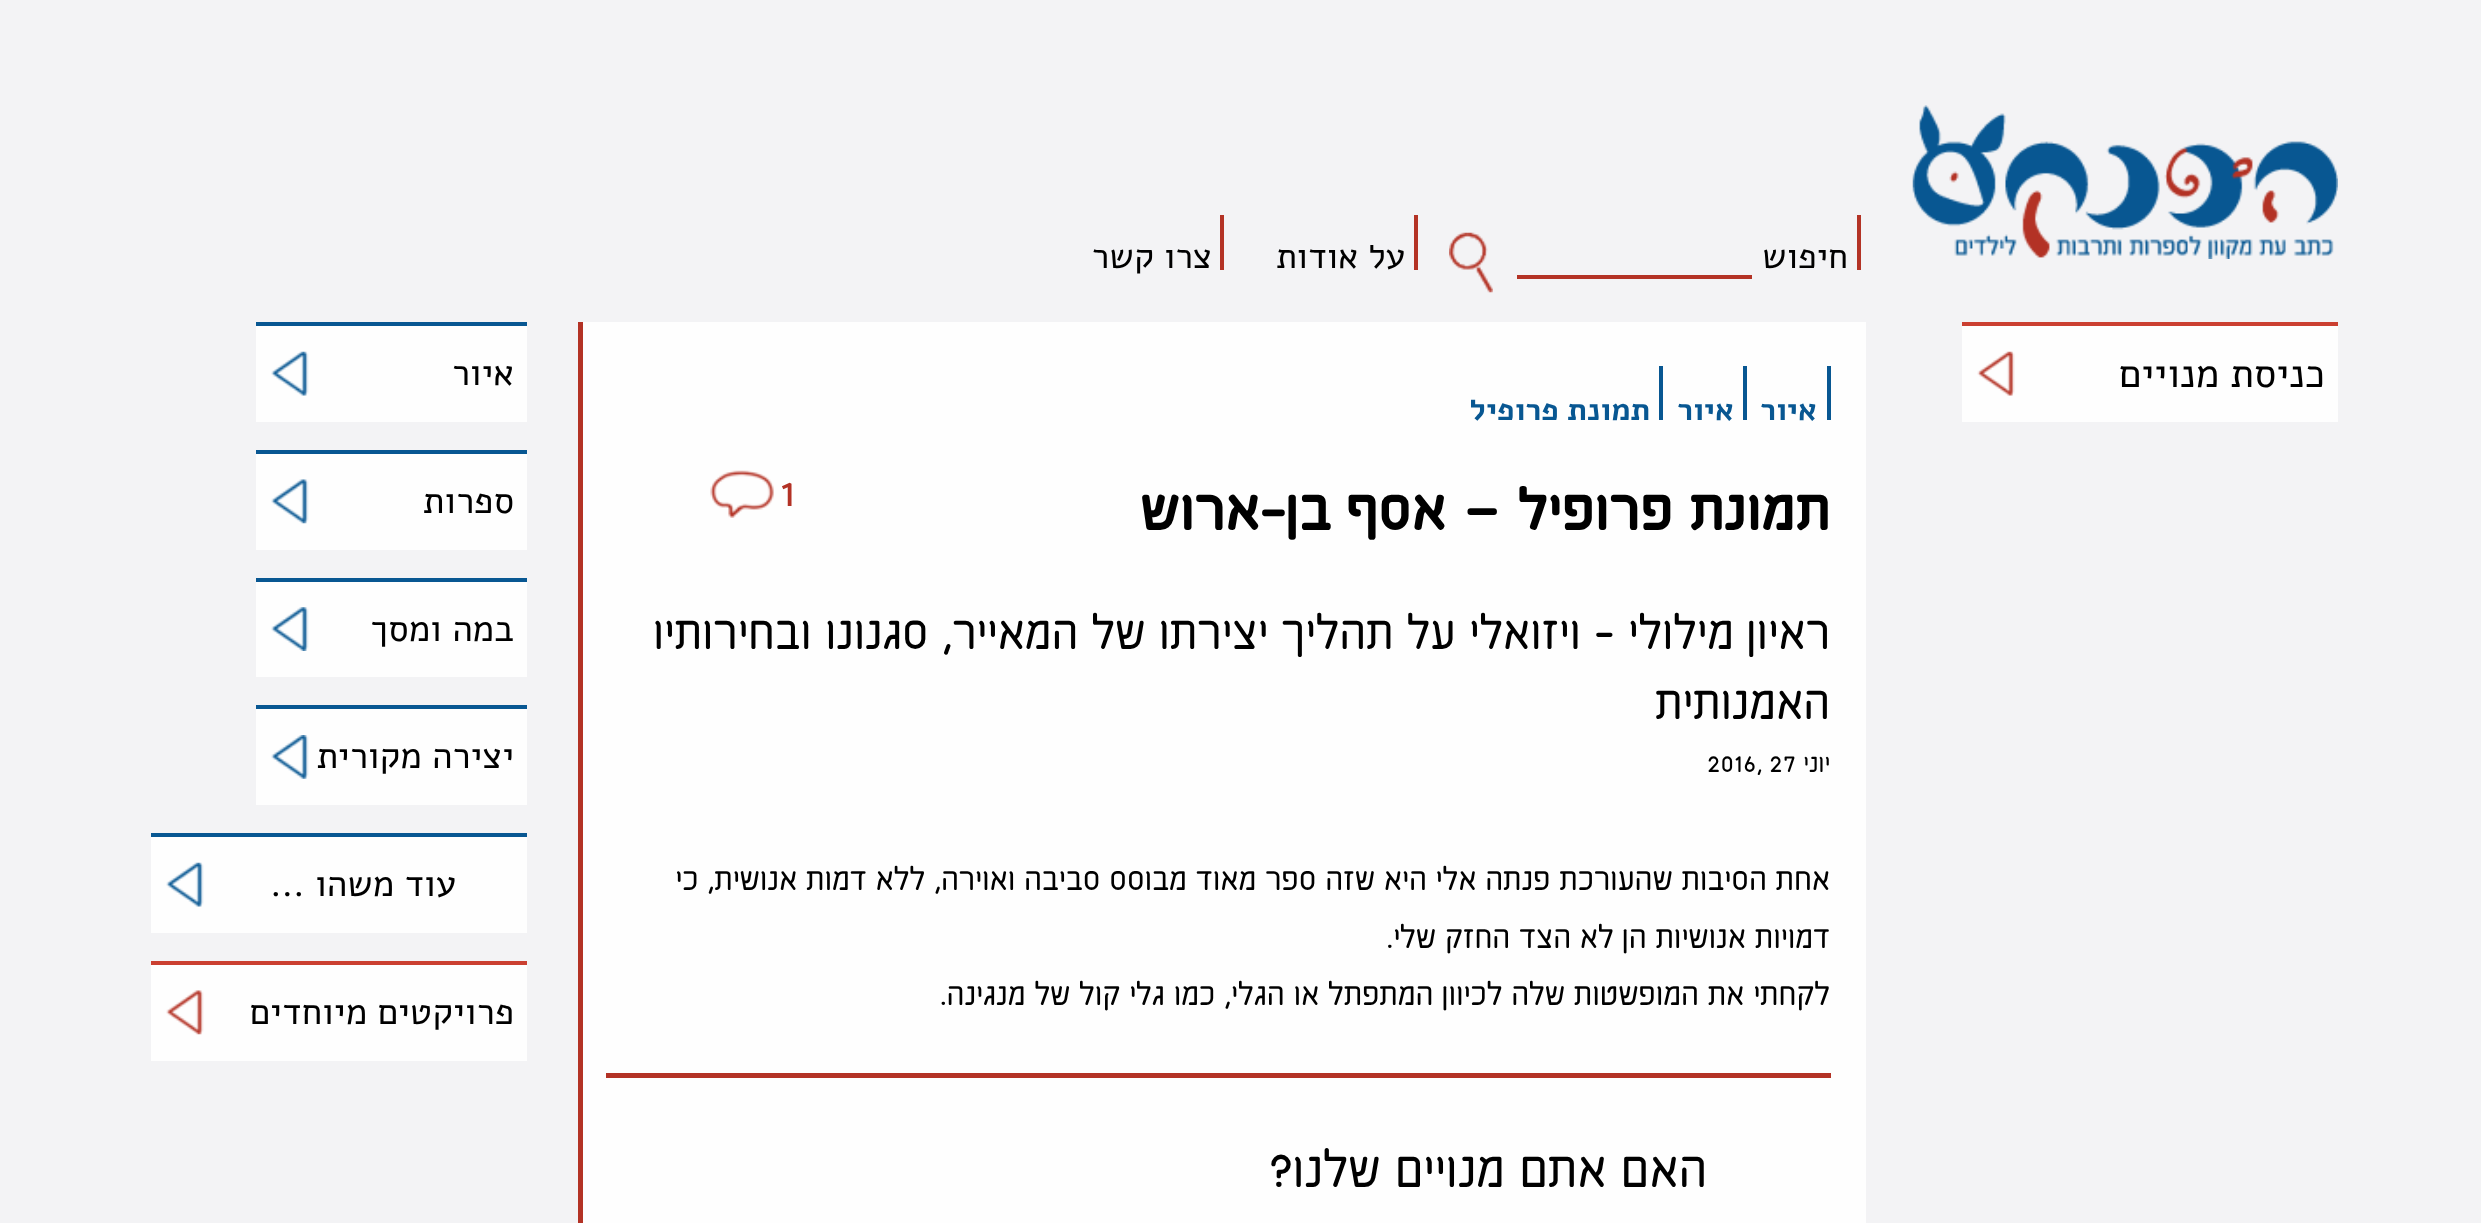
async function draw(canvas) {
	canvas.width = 2481;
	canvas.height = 1223;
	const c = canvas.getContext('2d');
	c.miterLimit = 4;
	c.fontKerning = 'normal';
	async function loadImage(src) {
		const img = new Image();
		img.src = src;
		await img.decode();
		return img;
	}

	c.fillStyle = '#f3f3f5';
	c.fillRect(0, 0, 2481, 1223);
	c.drawImage(await loadImage('img1.png'), 1912, 105, 426, 154);
	c.drawImage(await loadImage('img2.png'), 1449, 232, 44, 61);
	c.fillStyle = '#b33225';
	c.fillRect(1857, 215, 4, 55);
	c.direction = 'rtl';
	c.font = '35.5px Alef';
	c.fillStyle = '#000';
	c.fillText('חיפוש', 1848, 268);
	c.fillStyle = '#b33225';
	c.fillRect(1517, 275, 235, 4);
	c.fillRect(1414, 215, 4, 55);
	c.fillStyle = '#000';
	c.fillText('על אודות', 1405, 268);
	c.fillStyle = '#b33225';
	c.fillRect(1220, 215, 4, 55);
	c.fillStyle = '#000';
	c.fillText('צרו קשר', 1212, 268);
	c.fillStyle = '#fefefe';
	c.fillRect(1962, 326, 376, 96);
	c.fillStyle = '#cb4031';
	c.fillRect(1962, 322, 376, 4);
	c.font = '40.25px Alef';
	c.fillStyle = '#000';
	c.fillText('כניסת מנויים', 2325, 387);
	c.drawImage(await loadImage('img3.png'), 1977, 351, 38, 45);
	c.fillStyle = '#fefefe';
	c.fillRect(256, 326, 271, 96);
	c.fillStyle = '#085792';
	c.fillRect(256, 322, 271, 4);
	c.font = '36.75px Alef';
	c.fillStyle = '#000';
	c.fillText('איור', 514, 385);
	c.drawImage(await loadImage('img4.png'), 271, 351, 38, 45);
	c.fillStyle = '#fefefe';
	c.fillRect(256, 454, 271, 96);
	c.fillStyle = '#085792';
	c.fillRect(256, 450, 271, 4);
	c.fillStyle = '#000';
	c.fillText('ספרות', 514, 513);
	c.drawImage(await loadImage('img5.png'), 271, 479, 38, 45);
	c.fillStyle = '#fefefe';
	c.fillRect(256, 582, 271, 95);
	c.fillStyle = '#085792';
	c.fillRect(256, 578, 271, 4);
	c.fillStyle = '#000';
	c.fillText('במה ומסך', 514, 641);
	c.drawImage(await loadImage('img6.png'), 271, 607, 38, 44);
	c.fillStyle = '#fefefe';
	c.fillRect(256, 709, 271, 96);
	c.fillStyle = '#085792';
	c.fillRect(256, 705, 271, 4);
	c.fillStyle = '#000';
	c.fillText('יצירה מקורית', 514, 768);
	c.drawImage(await loadImage('img7.png'), 271, 735, 38, 44);
	c.fillStyle = '#fefefe';
	c.fillRect(151, 837, 376, 96);
	c.fillStyle = '#085792';
	c.fillRect(151, 833, 376, 4);
	c.fillStyle = '#000';
	c.fillText('עוד משהו ...', 456, 896);
	c.drawImage(await loadImage('img8.png'), 166, 862, 38, 45);
	c.fillStyle = '#fefefe';
	c.fillRect(151, 965, 376, 96);
	c.fillStyle = '#cb4031';
	c.fillRect(151, 961, 376, 4);
	c.fillStyle = '#000';
	c.fillText('פרויקטים מיוחדים', 514, 1024);
	c.drawImage(await loadImage('img9.png'), 166, 990, 38, 45);
	for (const [x, y, w, h, color] of [
		[583, 322, 1283, 901, '#fefefe'],
		[578, 322, 5, 901, '#b33225'],
		[1827, 366, 4, 54, '#085792'],
	]) {
		c.fillStyle = color;
		c.fillRect(x, y, w, h);
	}
	c.font = 'bold 31px Alef';
	c.fillText('איור', 1817, 420);
	c.fillRect(1743, 366, 4, 54);
	c.fillText('איור', 1734, 420);
	c.fillRect(1659, 366, 4, 54);
	c.fillText('תמונת פרופיל', 1650, 420);
	c.font = '70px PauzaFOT';
	c.fillStyle = '#000';
	c.fillText('תמונת פרופיל – אסף בן-ארוש', 1830, 530);
	c.drawImage(await loadImage('img10.png'), 710, 470, 64, 48);
	c.direction = 'ltr';
	c.font = '44px Alef';
	c.fillStyle = '#b33225';
	c.fillText('1', 780, 506);
	c.direction = 'rtl';
	c.font = '57.75px "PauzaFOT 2"';
	c.fillStyle = '#000';
	c.fillText('ראיון מילולי - ויזואלי על תהליך יצירתו של המאייר, סגנונו ובחירותיו', 1830, 649);
	c.fillText('האמנותית', 1830, 719);
	c.font = '31px "PauzaFOT 2"';
	c.fillText('יוני', 1830, 772);
	c.direction = 'ltr';
	c.fillText('2016, 27', 1707, 772);
	c.direction = 'rtl';
	c.font = '38.5px "PauzaFOT 2"';
	for (const [text, x, y] of [
		['אחת הסיבות שהעורכת פנתה אלי היא שזה ספר מאוד מבוסס סביבה ואוירה, ללא דמות אנושית, כי', 1830, 890],
		['דמויות אנושיות הן לא הצד החזק שלי.', 1830, 948],
		['לקחתי את המופשטות שלה לכיוון המתפתל או הגלי, כמו גלי קול של מנגינה.', 1830, 1005],
	]) {
		c.fillText(text, x, y);
	}
	c.fillStyle = '#b33225';
	c.fillRect(606, 1073, 1225, 5);
	c.font = '61.75px "PauzaFOT 2"';
	c.fillStyle = '#000';
	c.fillText('האם אתם מנויים שלנו?', 1707, 1187);
}

draw(document.querySelector('canvas'));
